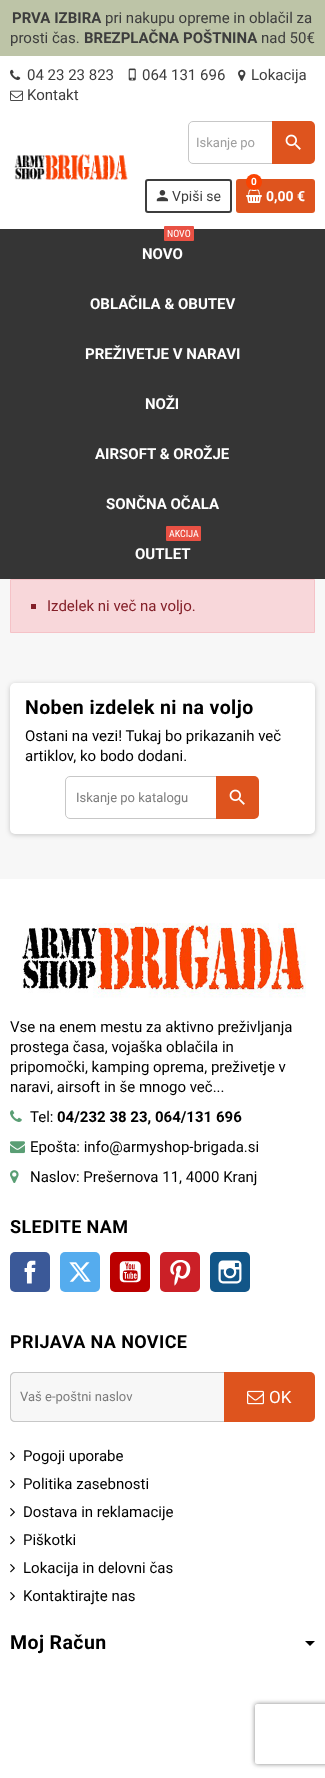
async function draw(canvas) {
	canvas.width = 325;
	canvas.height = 1778;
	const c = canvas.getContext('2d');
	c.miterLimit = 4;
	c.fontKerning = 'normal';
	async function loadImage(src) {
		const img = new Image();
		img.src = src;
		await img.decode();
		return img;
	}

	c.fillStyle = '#fff';
	c.fillRect(0, 0, 325, 1778);
	c.fillStyle = '#bdc4a7';
	c.fillRect(0, 0, 325, 56);
	c.font = 'bold 15px Roboto';
	c.fillStyle = '#3d3d3d';
	c.fillText('PRVA IZBIRA', 12, 23);
	c.font = '15px Roboto';
	c.fillText('pri nakupu opreme in oblačil za', 105, 23);
	c.fillText('prosti čas.', 10, 43);
	c.font = 'bold 15px Roboto';
	c.fillText('BREZPLAČNA POŠTNINA', 84, 43);
	c.font = '15px Roboto';
	c.fillText('nad 50€', 261, 43);
	c.drawImage(await loadImage('img1.png'), 10, 69, 11, 11);
	c.fillText('04 23 23 823', 27, 80);
	c.drawImage(await loadImage('img2.png'), 128, 68, 8, 13);
	c.fillText('064 131 696', 142, 80);
	c.drawImage(await loadImage('img3.png'), 238, 69, 8, 12);
	c.fillText('Lokacija', 251, 80);
	c.drawImage(await loadImage('img4.png'), 10, 90, 13, 11);
	c.fillText('Kontakt', 27, 100);
	c.drawImage(await loadImage('img5.png'), 14, 154, 114, 26);
	c.beginPath();
	c.roundRect(188.5, 121.5, 125, 42, 4.5);
	c.strokeStyle = '#c7c7c7';
	c.stroke();
	c.font = '13px Roboto';
	c.fillStyle = '#9e9e9e';
	c.fillText('Iskanje po', 196, 147);
	c.fillStyle = '#de541e';
	c.beginPath();
	c.roundRect(272, 121, 43, 43, [0, 5, 5, 0]);
	c.fill();
	c.drawImage(await loadImage('img6.png'), 285, 134, 16, 16);
	c.beginPath();
	c.roundRect(146, 180, 85, 32, 2);
	c.strokeStyle = '#3d3d3d';
	c.lineWidth = 2;
	c.stroke();
	c.drawImage(await loadImage('img7.png'), 156, 190, 12, 12);
	c.font = '14px Roboto';
	c.fillStyle = '#3d3d3d';
	c.fillText('Vpiši se', 172, 201);
	c.fillStyle = '#de541e';
	c.beginPath();
	c.roundRect(236, 179, 79, 34, 3);
	c.fill();
	c.drawImage(await loadImage('img8.png'), 246, 189, 16, 14);
	c.fillStyle = '#fa4301';
	c.beginPath();
	c.arc(254, 182, 8, 0, 2 * Math.PI);
	c.fill();
	c.font = 'bold 10px Roboto';
	c.fillStyle = '#fff';
	c.fillText('0', 251, 185);
	c.font = 'bold 14px Roboto';
	c.fillText('0,00 €', 266, 201);
	c.fillStyle = '#353535';
	c.fillRect(0, 229, 325, 350);
	c.fillStyle = '#e95144';
	c.beginPath();
	c.roundRect(164, 226, 30, 15, 1);
	c.fill();
	c.font = '10px Roboto Condensed';
	c.fillStyle = '#fff';
	c.fillText('NOVO', 167, 237);
	c.font = 'bold 15px "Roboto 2"';
	for (const [text, x, y] of [
		['NOVO', 142, 259],
		['OBLAČILA & OBUTEV', 90, 309],
		['PREŽIVETJE V NARAVI', 85, 359],
		['NOŽI', 145, 409],
		['AIRSOFT & OROŽJE', 95, 459],
		['SONČNA OČALA', 106, 509],
	]) {
		c.fillText(text, x, y);
	}
	c.fillStyle = '#e95144';
	c.beginPath();
	c.roundRect(166, 526, 35, 15, 1);
	c.fill();
	c.font = '10px Roboto Condensed';
	c.fillStyle = '#fff';
	c.fillText('AKCIJA', 169, 537);
	c.font = 'bold 15px "Roboto 2"';
	c.fillText('OUTLET', 135, 559);
	c.fillStyle = '#f7f7f7';
	c.fillRect(0, 579, 325, 300);
	c.fillStyle = '#f8d7da';
	c.beginPath();
	c.rect(10.5, 579.5, 304, 53);
	c.fill();
	c.strokeStyle = '#f5c2c7';
	c.lineWidth = 1;
	c.stroke();
	c.fillStyle = '#842029';
	c.fillRect(31, 604, 5, 5);
	c.font = '15px Roboto';
	c.fillText('Izdelek ni več na voljo.', 47, 611);
	c.fillStyle = '#00000033';
	c.filter = 'blur(2.5px)';
	c.beginPath();
	c.roundRect(10, 684, 305, 151, 5);
	c.fill();
	c.filter = 'none';
	c.fillStyle = '#fff';
	c.beginPath();
	c.roundRect(10, 683, 305, 151, 5);
	c.fill();
	c.letterSpacing = '0.4px';
	c.font = 'bold 19.5px "Roboto 2"';
	c.fillStyle = '#000';
	c.fillText('Noben izdelek ni na voljo', 25, 714);
	c.letterSpacing = '0px';
	c.font = '15px Roboto';
	c.fillText('Ostani na vezi! Tukaj bo prikazanih več', 25, 741);
	c.fillText('artiklov, ko bodo dodani.', 25, 761);
	c.beginPath();
	c.roundRect(65.5, 776.5, 192, 42, 4.5);
	c.strokeStyle = '#c7c7c7';
	c.stroke();
	c.font = '13px Roboto';
	c.fillStyle = '#7c7c7c';
	c.fillText('Iskanje po katalogu', 76, 802);
	c.fillStyle = '#de541e';
	c.beginPath();
	c.roundRect(216, 776, 43, 43, [0, 5, 5, 0]);
	c.fill();
	c.drawImage(await loadImage('img6.png'), 229, 789, 16, 16);
	c.drawImage(await loadImage('img9.png'), 21, 923, 285, 75);
	c.font = '15px Roboto';
	c.fillStyle = '#000';
	for (const [text, x, y] of [
		['Vse na enem mestu za aktivno preživljanja', 10, 1032],
		['prostega časa, vojaška oblačila in', 10, 1052],
		['pripomočki, kamping oprema, preživetje v', 10, 1072],
		['naravi, airsoft in še mnogo več...', 10, 1092],
	]) {
		c.fillText(text, x, y);
	}
	c.drawImage(await loadImage('img10.png'), 10, 1110, 12, 12);
	c.fillText('Tel:', 30, 1122);
	c.font = 'bold 15px Roboto';
	c.fillText('04/232 38 23, 064/131 696', 57, 1122);
	c.drawImage(await loadImage('img11.png'), 10, 1141, 15, 13);
	c.font = '15px Roboto';
	c.fillText('Epošta: info@armyshop-brigada.si', 30, 1152);
	c.drawImage(await loadImage('img12.png'), 10, 1170, 9, 13);
	c.fillText('Naslov: Prešernova 11, 4000 Kranj', 30, 1182);
	c.letterSpacing = '0.4px';
	c.font = 'bold 18px "Roboto 2"';
	c.fillText('SLEDITE NAM', 10, 1233);
	c.fillStyle = '#3b5998';
	c.beginPath();
	c.roundRect(10, 1252, 40, 40, 5);
	c.fill();
	c.drawImage(await loadImage('img13.png'), 24, 1260, 12, 24);
	c.fillStyle = '#55acee';
	c.beginPath();
	c.roundRect(60, 1252, 40, 40, 5);
	c.fill();
	c.drawImage(await loadImage('img14.png'), 69, 1262, 22, 20);
	c.fillStyle = '#b00';
	c.beginPath();
	c.roundRect(110, 1252, 40, 40, 5);
	c.fill();
	c.drawImage(await loadImage('img15.png'), 119, 1261, 22, 22);
	c.fillStyle = '#cb2027';
	c.beginPath();
	c.roundRect(160, 1252, 40, 40, 5);
	c.fill();
	c.drawImage(await loadImage('img16.png'), 170, 1260, 21, 26);
	c.fillStyle = '#125688';
	c.beginPath();
	c.roundRect(210, 1252, 40, 40, 5);
	c.fill();
	c.drawImage(await loadImage('img17.png'), 218, 1260, 24, 24);
	c.fillStyle = '#000';
	c.fillText('PRIJAVA NA NOVICE', 10, 1348);
	c.fillStyle = '#f7f7f7';
	c.beginPath();
	c.roundRect(11, 1373, 213, 48, [4, 0, 0, 4]);
	c.fill();
	c.fillStyle = '#c7c7c7';
	c.beginPath();
	c.moveTo(15, 1372);
	c.lineTo(224, 1372);
	c.lineTo(224, 1422);
	c.lineTo(15, 1422);
	c.bezierCurveTo(12, 1422, 10, 1420, 10, 1417);
	c.lineTo(10, 1377);
	c.bezierCurveTo(10, 1374, 12, 1372, 15, 1372);
	c.closePath();
	c.moveTo(15, 1373);
	c.lineTo(224, 1373);
	c.lineTo(224, 1421);
	c.lineTo(15, 1421);
	c.bezierCurveTo(13, 1421, 11, 1419, 11, 1417);
	c.lineTo(11, 1377);
	c.bezierCurveTo(11, 1375, 13, 1373, 15, 1373);
	c.closePath();
	c.fill('evenodd');
	c.letterSpacing = '0px';
	c.font = '13px Roboto';
	c.fillStyle = '#7c7c7c';
	c.fillText('Vaš e-poštni naslov', 20, 1401);
	c.fillStyle = '#de541e';
	c.beginPath();
	c.roundRect(224, 1372, 91, 50, [0, 5, 5, 0]);
	c.fill();
	c.drawImage(await loadImage('img18.png'), 247, 1390, 17, 15);
	c.font = '17px Roboto';
	c.fillStyle = '#fff';
	c.fillText('OK', 269, 1403);
	c.drawImage(await loadImage('img19.png'), 10, 1452, 5, 9);
	c.font = '15px Roboto';
	c.fillStyle = '#000';
	c.fillText('Pogoji uporabe', 23, 1461);
	c.drawImage(await loadImage('img19.png'), 10, 1480, 5, 9);
	c.fillText('Politika zasebnosti', 23, 1489);
	c.drawImage(await loadImage('img19.png'), 10, 1508, 5, 9);
	c.fillText('Dostava in reklamacije', 23, 1517);
	c.drawImage(await loadImage('img19.png'), 10, 1536, 5, 9);
	c.fillText('Piškotki', 23, 1545);
	c.drawImage(await loadImage('img19.png'), 10, 1564, 5, 9);
	c.fillText('Lokacija in delovni čas', 23, 1573);
	c.drawImage(await loadImage('img19.png'), 10, 1592, 5, 9);
	c.fillText('Kontaktirajte nas', 23, 1601);
	c.letterSpacing = '0.4px';
	c.font = 'bold 19.5px "Roboto 2"';
	c.fillText('Moj Račun', 10, 1649);
	c.beginPath();
	c.moveTo(305, 1641);
	c.lineTo(315, 1641);
	c.lineTo(310, 1646);
	c.closePath();
	c.fill();
	c.save();
	c.beginPath();
	c.moveTo(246, 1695);
	c.lineTo(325, 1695);
	c.lineTo(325, 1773);
	c.lineTo(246, 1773);
	c.closePath();
	c.moveTo(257, 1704);
	c.lineTo(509, 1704);
	c.bezierCurveTo(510, 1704, 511, 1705, 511, 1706);
	c.lineTo(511, 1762);
	c.bezierCurveTo(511, 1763, 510, 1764, 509, 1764);
	c.lineTo(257, 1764);
	c.bezierCurveTo(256, 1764, 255, 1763, 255, 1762);
	c.lineTo(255, 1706);
	c.bezierCurveTo(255, 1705, 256, 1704, 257, 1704);
	c.closePath();
	c.clip('evenodd');
	c.fillStyle = '#808080';
	c.filter = 'blur(2.5px)';
	c.beginPath();
	c.roundRect(255, 1704, 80, 60, 2);
	c.fill();
	c.filter = 'none';
	c.restore();
}

draw(document.querySelector('canvas'));
